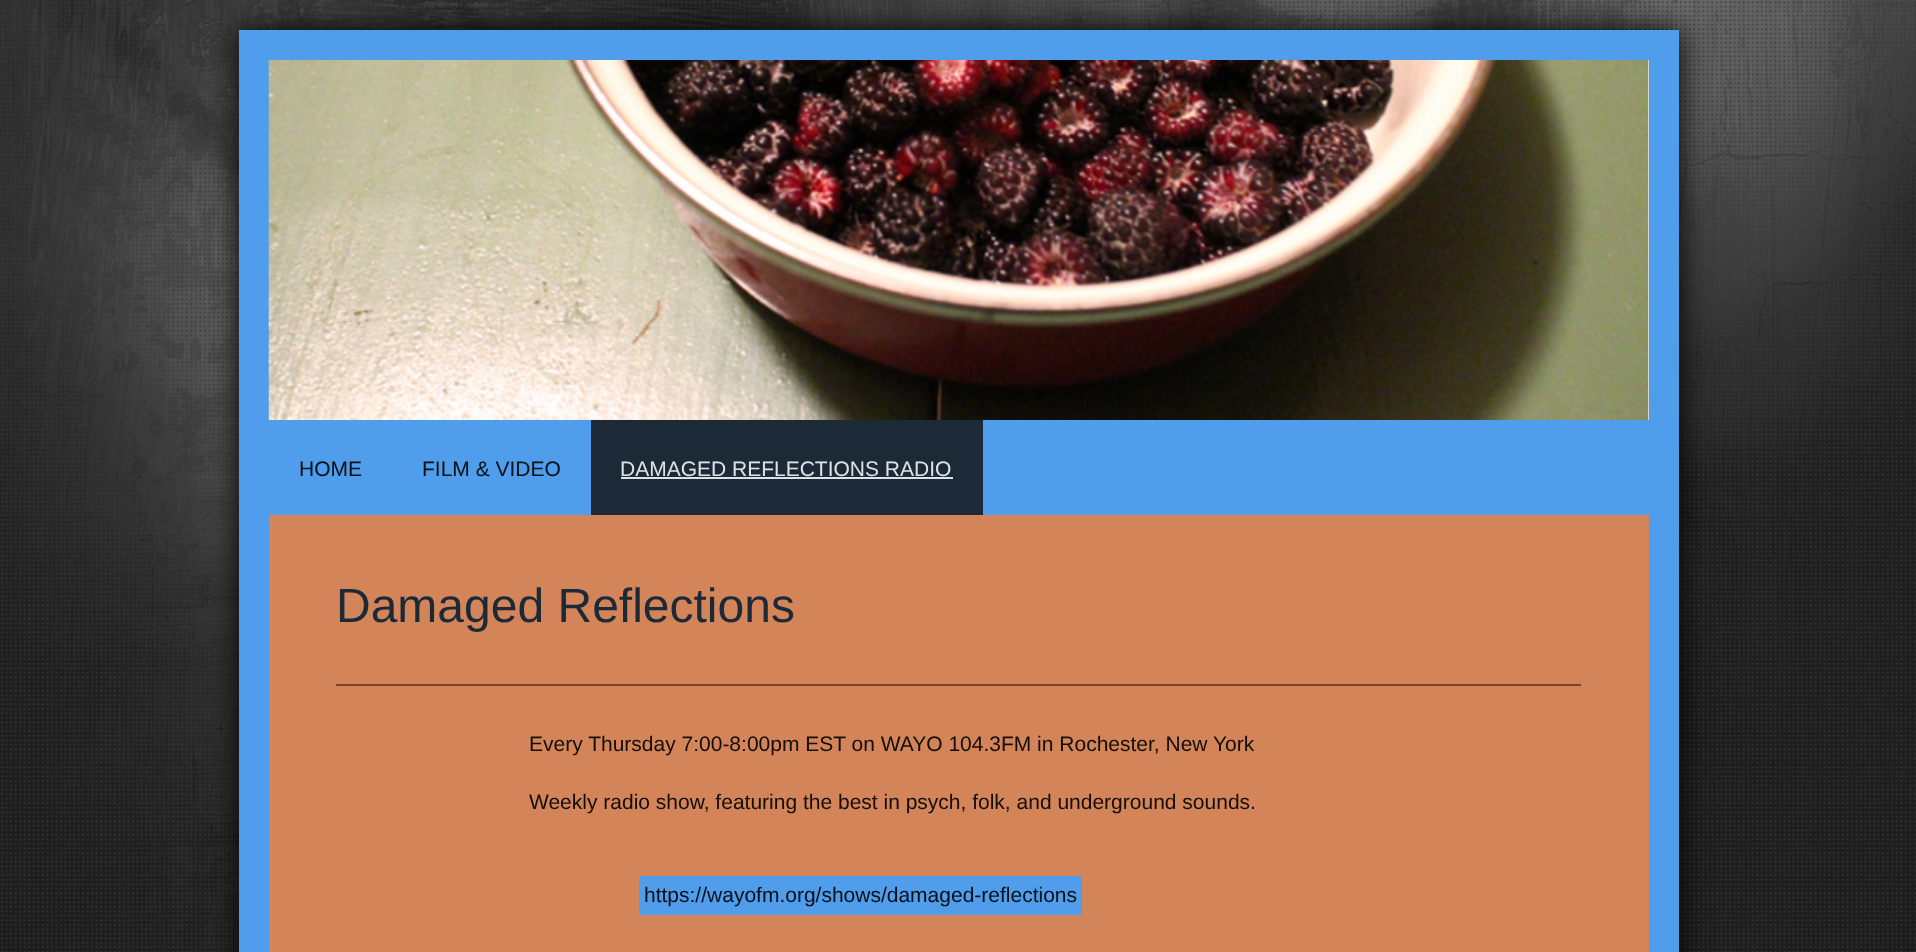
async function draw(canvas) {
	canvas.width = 1916;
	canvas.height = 952;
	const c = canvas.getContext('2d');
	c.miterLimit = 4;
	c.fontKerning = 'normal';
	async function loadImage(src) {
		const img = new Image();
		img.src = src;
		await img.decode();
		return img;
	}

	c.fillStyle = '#fff';
	c.fillRect(0, 0, 1916, 952);
	c.drawImage(await loadImage('img1.png'), 0, 0, 1916, 952);
	c.fillStyle = '#000';
	c.filter = 'blur(15px)';
	c.beginPath();
	c.rect(239, 30, 1440, 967);
	c.fill();
	c.filter = 'none';
	c.fillStyle = '#4f9deb';
	c.fillRect(239, 30, 1440, 922);
	c.fillStyle = '#eee';
	c.fillRect(1648, 60, 1, 360);
	c.drawImage(await loadImage('img2.png'), 268, 60, 1381, 360);
	c.font = '21px Liberation Sans';
	c.fillStyle = '#081018';
	c.fillText('HOME', 299, 476);
	c.fillText('FILM & VIDEO', 422, 476);
	c.fillStyle = '#1c2a38';
	c.fillRect(591, 420, 392, 95);
	c.fillStyle = '#dee2e6';
	c.fillText('DAMAGED REFLECTIONS RADIO', 620, 476);
	c.fillRect(621, 477, 332, 2);
	c.fillStyle = '#d38559';
	c.fillRect(269, 515, 1380, 437);
	c.font = '48px Liberation Sans';
	c.fillStyle = '#1c2a38';
	c.fillText('Damaged Reflections', 336, 622);
	c.fillStyle = '#7e4525';
	c.fillRect(336, 684, 1245, 2);
	c.font = '21px Liberation Sans';
	c.fillStyle = '#150d09';
	c.fillText('Every Thursday 7:00-8:00pm EST on WAYO 104.3FM in Rochester, New York', 529, 751);
	c.fillText('Weekly radio show, featuring the best in psych, folk, and underground sounds.', 529, 809);
	c.fillStyle = '#4f9deb';
	c.fillRect(639, 876, 443, 39);
	c.fillStyle = '#081018';
	c.fillText('https://wayofm.org/shows/damaged-reflections', 644, 902);
}

draw(document.querySelector('canvas'));
